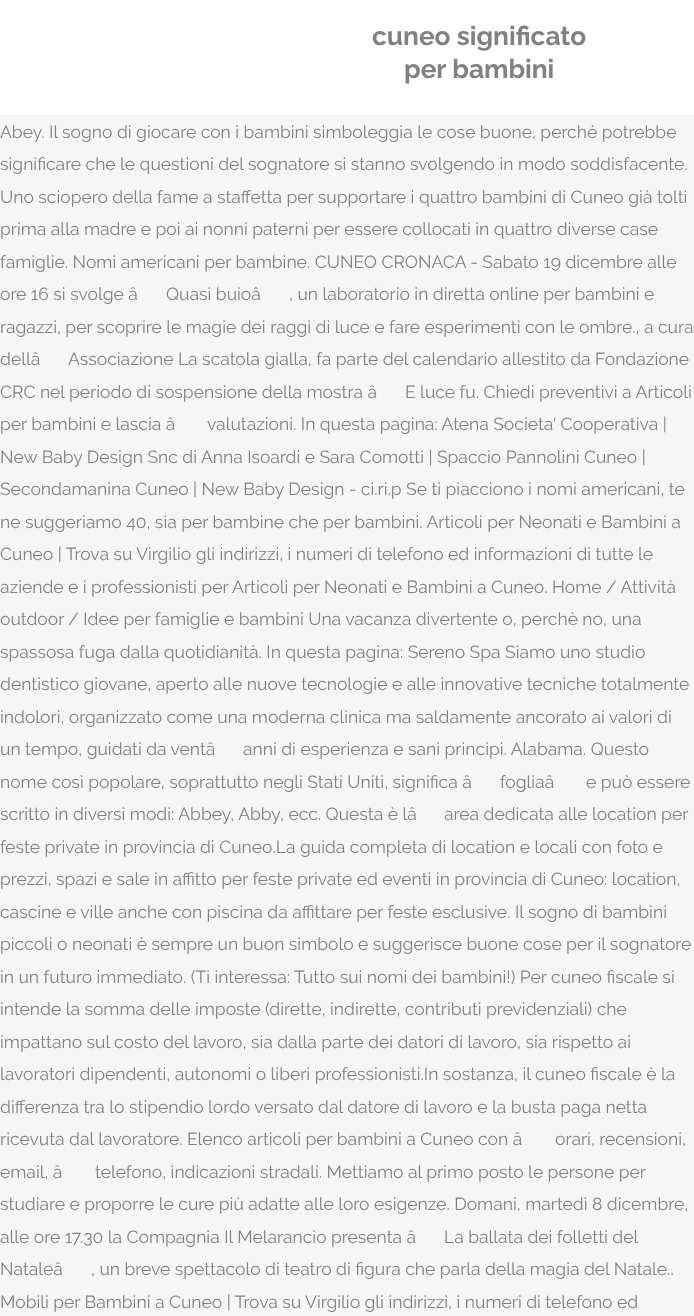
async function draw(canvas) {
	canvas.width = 694;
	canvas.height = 1316;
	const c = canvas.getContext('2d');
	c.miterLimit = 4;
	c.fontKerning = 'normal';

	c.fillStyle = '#f6f6f6';
	c.fillRect(0, 0, 694, 1316);
	c.fillStyle = '#fff';
	c.fillRect(0, 0, 694, 115);
	c.font = 'bold 26.25px Raleway';
	c.fillStyle = '#818181';
	c.fillText('cuneo significato', 372, 45);
	c.fillText('per bambini', 404, 78);
	c.font = '17.5px Raleway';
	for (const [text, x, y] of [
		['Abey. Il sogno di giocare con i bambini simboleggia le cose buone, perché potrebbe', 0, 138],
		['significare che le questioni del sognatore si stanno svolgendo in modo soddisfacente.', 0, 170],
		['Uno sciopero della fame a staffetta per supportare i quattro bambini di Cuneo già tolti', 0, 203],
		['prima alla madre e poi ai nonni paterni per essere collocati in quattro diverse case', 0, 235],
		['famiglie. Nomi americani per bambine. CUNEO CRONACA - Sabato 19 dicembre alle', 0, 268],
		['ore 16 si svolge â', 0, 300],
		['Quasi buioâ', 166, 300],
		[', un laboratorio in diretta online per bambini e', 289, 300],
		['ragazzi, per scoprire le magie dei raggi di luce e fare esperimenti con le ombre., a cura', 0, 333],
		['dellâ', 0, 365],
		['Associazione La scatola gialla, fa parte del calendario allestito da Fondazione', 68, 365],
		['CRC nel periodo di sospensione della mostra â', 0, 398],
		['E luce fu. Chiedi preventivi a Articoli', 405, 398],
		['per bambini e lascia â', 0, 430],
		['valutazioni. In questa pagina: Atena Societa\' Cooperativa |', 207, 430],
		['New Baby Design Snc di Anna Isoardi e Sara Comotti | Spaccio Pannolini Cuneo |', 0, 463],
		['Secondamanina Cuneo | New Baby Design - ci.ri.p Se ti piacciono i nomi americani, te', 0, 495],
		['ne suggeriamo 40, sia per bambine che per bambini. Articoli per Neonati e Bambini a', 0, 528],
		['Cuneo | Trova su Virgilio gli indirizzi, i numeri di telefono ed informazioni di tutte le', 0, 560],
		['aziende e i professionisti per Articoli per Neonati e Bambini a Cuneo. Home / Attività', 0, 593],
		['outdoor / Idee per famiglie e bambini Una vacanza divertente o, perchè no, una', 0, 625],
		['spassosa fuga dalla quotidianità. In questa pagina: Sereno Spa Siamo uno studio', 0, 658],
		['dentistico giovane, aperto alle nuove tecnologie e alle innovative tecniche totalmente', 0, 690],
		['indolori, organizzato come una moderna clinica ma saldamente ancorato ai valori di', 0, 723],
		['un tempo, guidati da ventâ', 0, 755],
		['anni di esperienza e sani principi. Alabama. Questo', 243, 755],
		['nome così popolare, soprattutto negli Stati Uniti, significa â', 0, 788],
		['fogliaâ', 500, 788],
		['e può essere', 586, 788],
		['scritto in diversi modi: Abbey, Abby, ecc. Questa è lâ', 0, 820],
		['area dedicata alle location per', 444, 820],
		['feste private in provincia di Cuneo.La guida completa di location e locali con foto e', 0, 853],
		['prezzi, spazi e sale in affitto per feste private ed eventi in provincia di Cuneo: location,', 0, 885],
		['cascine e ville anche con piscina da affittare per feste esclusive. Il sogno di bambini', 0, 918],
		['piccoli o neonati è sempre un buon simbolo e suggerisce buone cose per il sognatore', 0, 950],
		['in un futuro immediato. (Ti interessa: Tutto sui nomi dei bambini!) Per cuneo fiscale si', 0, 983],
		['intende la somma delle imposte (dirette, indirette, contributi previdenziali) che', 0, 1015],
		['impattano sul costo del lavoro, sia dalla parte dei datori di lavoro, sia rispetto ai', 0, 1048],
		['lavoratori dipendenti, autonomi o liberi professionisti.In sostanza, il cuneo fiscale è la', 0, 1080],
		['differenza tra lo stipendio lordo versato dal datore di lavoro e la busta paga netta', 0, 1113],
		['ricevuta dal lavoratore. Elenco articoli per bambini a Cuneo con â', 0, 1145],
		['orari, recensioni,', 555, 1145],
		['email, â', 0, 1178],
		['telefono, indicazioni stradali. Mettiamo al primo posto le persone per', 95, 1178],
		['studiare e proporre le cure più adatte alle loro esigenze. Domani, martedì 8 dicembre,', 0, 1210],
		['alle ore 17.30 la Compagnia Il Melarancio presenta â', 0, 1243],
		['La ballata dei folletti del', 444, 1243],
		['Nataleâ', 0, 1275],
		[', un breve spettacolo di teatro di figura che parla della magia del Natale..', 91, 1275],
		['Mobili per Bambini a Cuneo | Trova su Virgilio gli indirizzi, i numeri di telefono ed', 0, 1308],
	]) {
		c.fillText(text, x, y);
	}
}

draw(document.querySelector('canvas'));
